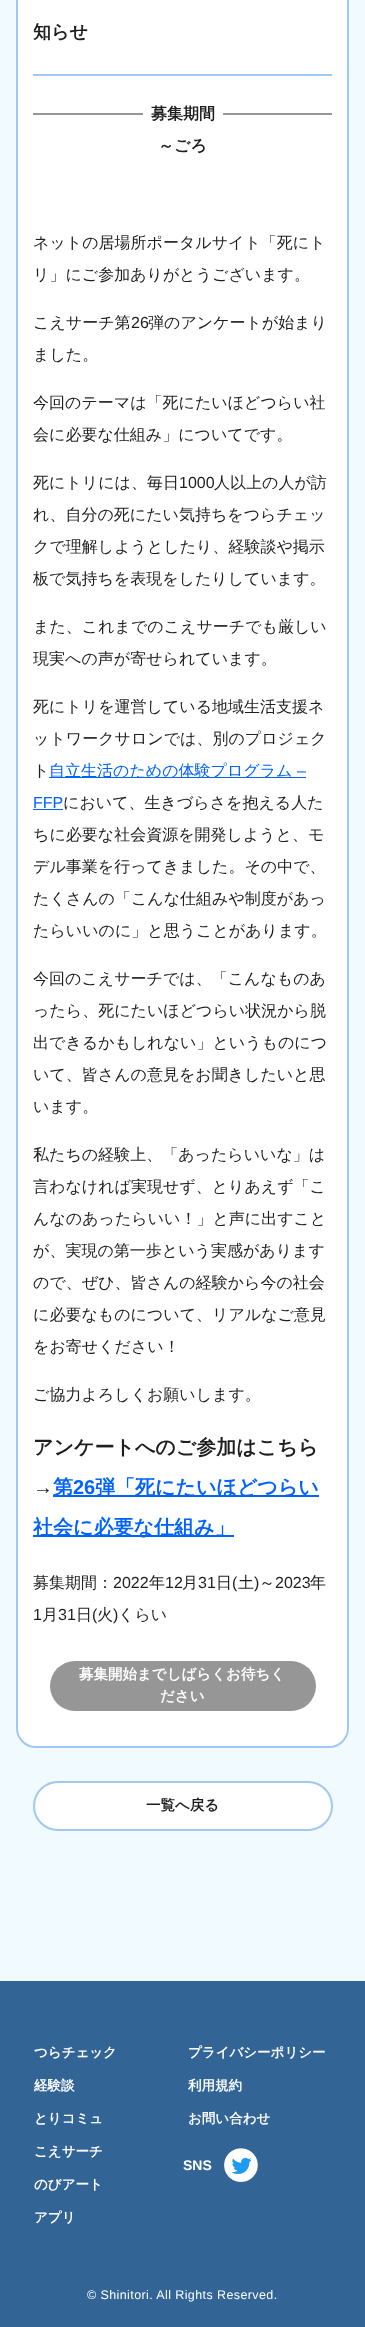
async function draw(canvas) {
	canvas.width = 365;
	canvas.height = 2327;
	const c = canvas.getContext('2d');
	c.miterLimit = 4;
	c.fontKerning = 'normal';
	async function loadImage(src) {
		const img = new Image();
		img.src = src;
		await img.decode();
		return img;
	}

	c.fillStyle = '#f0faff';
	c.fillRect(0, 0, 365, 2327);
	c.fillStyle = '#fff';
	c.beginPath();
	c.roundRect(17, -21, 331, 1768, 19);
	c.fill();
	c.strokeStyle = '#a0c8f0';
	c.lineWidth = 2;
	c.stroke();
	c.fillStyle = '#a0c8f0';
	c.fillRect(33, 74, 299, 2);
	c.font = 'bold 18px WenQuanYi Zen Hei';
	c.fillStyle = '#1e1e1e';
	c.fillText('知らせ', 33, 38);
	c.fillStyle = '#969696';
	c.fillRect(33, 113, 299, 2);
	c.fillStyle = '#fff';
	c.fillRect(143, 113, 80, 2);
	c.font = 'bold 16px WenQuanYi Zen Hei';
	c.fillStyle = '#1e1e1e';
	c.fillText('募集期間', 151, 119);
	c.fillText('～ごろ', 158, 151);
	c.font = '500 16px WenQuanYi Zen Hei';
	for (const [text, x, y] of [
		['ネットの居場所ポータルサイト「死にト', 33, 248],
		['リ」にご参加ありがとうございます。', 33, 280],
		['こえサーチ第', 33, 328],
	]) {
		c.fillText(text, x, y);
	}
	c.font = '16px Liberation Sans';
	c.fillText('26', 131, 328);
	c.font = '500 16px WenQuanYi Zen Hei';
	for (const [text, x, y] of [
		['弾のアンケートが始まり', 148, 328],
		['ました。', 33, 360],
		['今回のテーマは「死にたいほどつらい社', 33, 408],
		['会に必要な仕組み」についてです。', 33, 440],
		['死にトリには、毎日', 33, 488],
	]) {
		c.fillText(text, x, y);
	}
	c.font = '16px Liberation Sans';
	c.fillText('1000', 179, 488);
	c.font = '500 16px WenQuanYi Zen Hei';
	for (const [text, x, y] of [
		['人以上の人が訪', 214, 488],
		['れ、自分の死にたい気持ちをつらチェッ', 33, 520],
		['クで理解しようとしたり、経験談や掲示', 33, 552],
		['板で気持ちを表現をしたりしています。', 33, 584],
		['また、これまでのこえサーチでも厳しい', 33, 632],
		['現実への声が寄せられています。', 33, 664],
		['死にトリを運営している地域生活支援ネ', 33, 712],
		['ットワークサロンでは、別のプロジェク', 33, 744],
		['ト', 33, 776],
	]) {
		c.fillText(text, x, y);
	}
	c.fillStyle = '#0062ff';
	c.fillRect(49, 777, 257, 1);
	c.fillText('自立生活のための体験プログラム', 49, 776);
	c.font = '16px Liberation Sans';
	c.fillText('–', 297, 776);
	c.fillText('FFP', 33, 808);
	c.fillRect(33, 809, 30, 1);
	c.font = '500 16px WenQuanYi Zen Hei';
	c.fillStyle = '#1e1e1e';
	for (const [text, x, y] of [
		['において、生きづらさを抱える人た', 63, 808],
		['ちに必要な社会資源を開発しようと、モ', 33, 840],
		['デル事業を行ってきました。その中で、', 33, 872],
		['たくさんの「こんな仕組みや制度があっ', 33, 904],
		['たらいいのに」と思うことがあります。', 33, 936],
		['今回のこえサーチでは、「こんなものあ', 33, 984],
		['ったら、死にたいほどつらい状況から脱', 33, 1016],
		['出できるかもしれない」というものにつ', 33, 1048],
		['いて、皆さんの意見をお聞きしたいと思', 33, 1080],
		['います。', 33, 1112],
		['私たちの経験上、「あったらいいな」は', 33, 1160],
		['言わなければ実現せず、とりあえず「こ', 33, 1192],
		['んなのあったらいい！」と声に出すこと', 33, 1224],
		['が、実現の第一歩という実感があります', 33, 1256],
		['ので、ぜひ、皆さんの経験から今の社会', 33, 1288],
		['に必要なものについて、リアルなご意見', 33, 1320],
		['をお寄せください！', 33, 1352],
		['ご協力よろしくお願いします。', 33, 1400],
	]) {
		c.fillText(text, x, y);
	}
	c.font = 'bold 20px WenQuanYi Zen Hei';
	c.fillText('アンケートへのご参加はこちら', 33, 1454);
	c.font = 'bold 20px Liberation Sans';
	c.fillText('→', 33, 1494);
	c.fillStyle = '#0062ff';
	c.fillRect(53, 1495, 266, 2);
	c.font = 'bold 20px WenQuanYi Zen Hei';
	c.fillText('第', 53, 1494);
	c.font = 'bold 20px Liberation Sans';
	c.fillText('26', 73, 1494);
	c.font = 'bold 20px WenQuanYi Zen Hei';
	c.fillText('弾「死にたいほどつらい', 95, 1494);
	c.fillRect(33, 1535, 201, 2);
	c.fillText('社会に必要な仕組み」', 33, 1534);
	c.font = '500 16px WenQuanYi Zen Hei';
	c.fillStyle = '#1e1e1e';
	c.fillText('募集期間：', 33, 1588);
	c.font = '16px Liberation Sans';
	c.fillText('2022', 113, 1588);
	c.font = '500 16px WenQuanYi Zen Hei';
	c.fillText('年', 149, 1588);
	c.font = '16px Liberation Sans';
	c.fillText('12', 165, 1588);
	c.font = '500 16px WenQuanYi Zen Hei';
	c.fillText('月', 182, 1588);
	c.font = '16px Liberation Sans';
	c.fillText('31', 198, 1588);
	c.font = '500 16px WenQuanYi Zen Hei';
	c.fillText('日', 216, 1588);
	c.font = '16px Liberation Sans';
	c.fillText('(', 232, 1588);
	c.font = '500 16px WenQuanYi Zen Hei';
	c.fillText('土', 238, 1588);
	c.font = '16px Liberation Sans';
	c.fillText(')', 254, 1588);
	c.font = '500 16px WenQuanYi Zen Hei';
	c.fillText('～', 259, 1588);
	c.font = '16px Liberation Sans';
	c.fillText('2023', 275, 1588);
	c.font = '500 16px WenQuanYi Zen Hei';
	c.fillText('年', 310, 1588);
	c.font = '16px Liberation Sans';
	c.fillText('1', 33, 1620);
	c.font = '500 16px WenQuanYi Zen Hei';
	c.fillText('月', 42, 1620);
	c.font = '16px Liberation Sans';
	c.fillText('31', 58, 1620);
	c.font = '500 16px WenQuanYi Zen Hei';
	c.fillText('日', 76, 1620);
	c.font = '16px Liberation Sans';
	c.fillText('(', 92, 1620);
	c.font = '500 16px WenQuanYi Zen Hei';
	c.fillText('火', 97, 1620);
	c.font = '16px Liberation Sans';
	c.fillText(')', 113, 1620);
	c.font = '500 16px WenQuanYi Zen Hei';
	c.fillText('くらい', 118, 1620);
	c.fillStyle = '#969696';
	c.beginPath();
	c.roundRect(50, 1661, 266, 50, 25);
	c.fill();
	c.font = 'bold 14.5px WenQuanYi Zen Hei';
	c.fillStyle = '#fff';
	c.fillText('募集開始までしばらくお待ちく', 79, 1679);
	c.fillText('ださい', 160, 1701);
	c.beginPath();
	c.roundRect(34, 1782, 298, 48, 24);
	c.fill();
	c.stroke();
	c.fillStyle = '#1e1e1e';
	c.fillText('一覧へ戻る', 146, 1810);
	c.fillStyle = '#326496';
	c.fillRect(0, 1981, 365, 346);
	c.font = 'bold 13.5px WenQuanYi Zen Hei';
	c.fillStyle = '#fff';
	for (const [text, x, y] of [
		['つらチェック', 34, 2057],
		['経験談', 34, 2090],
		['とりコミュ', 34, 2123],
		['こえサーチ', 34, 2156],
		['のびアート', 34, 2189],
		['アプリ', 34, 2222],
		['プライバシーポリシー', 188, 2057],
		['利用規約', 188, 2090],
		['お問い合わせ', 188, 2123],
	]) {
		c.fillText(text, x, y);
	}
	c.font = 'bold 14px Liberation Sans';
	c.fillText('SNS', 183, 2170);
	c.drawImage(await loadImage('img1.png'), 224, 2148, 34, 34);
	c.letterSpacing = '0.4px';
	c.font = '12.5px Liberation Sans';
	c.fillText('© Shinitori. All Rights Reserved.', 87, 2299);
}

draw(document.querySelector('canvas'));
